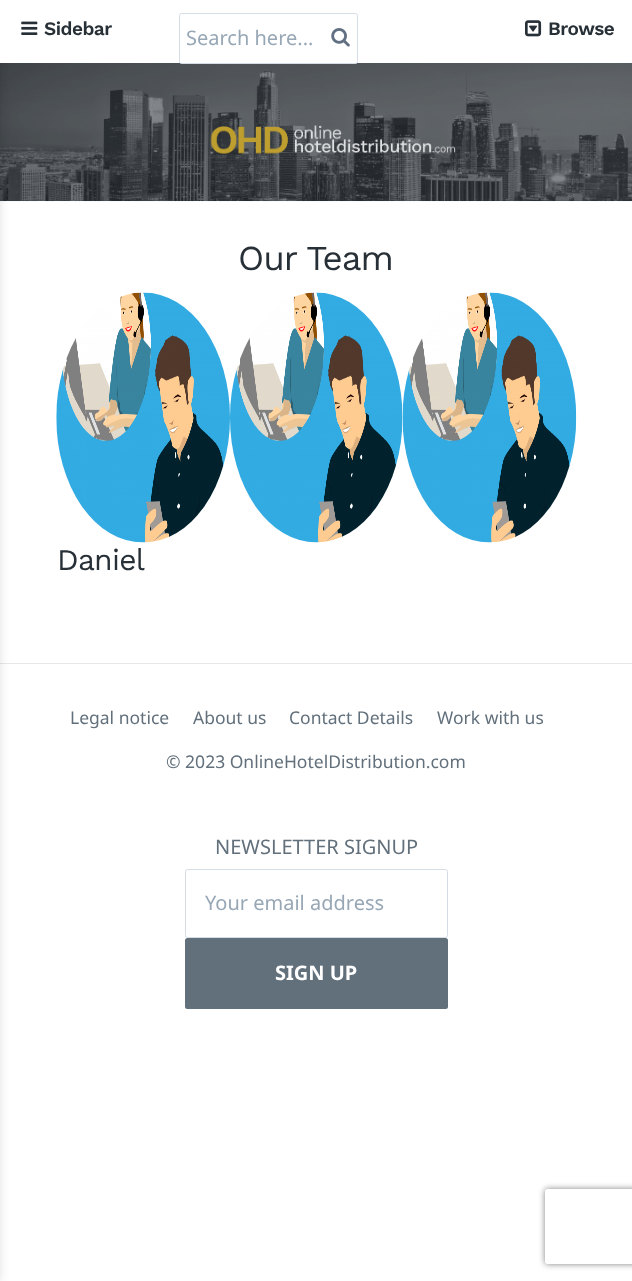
async function draw(canvas) {
	canvas.width = 632;
	canvas.height = 1281;
	const c = canvas.getContext('2d');
	c.miterLimit = 4;
	c.fontKerning = 'normal';
	async function loadImage(src) {
		const img = new Image();
		img.src = src;
		await img.decode();
		return img;
	}

	c.fillStyle = '#fff';
	c.fillRect(0, 0, 632, 1281);
	c.fillStyle = '#283037';
	c.fillRect(0, 63, 632, 138);
	c.drawImage(await loadImage('img4.png'), 0, 63, 632, 139);
	c.fillStyle = '#e8e8e8';
	c.fillRect(0, 663, 632, 1);
	c.fillStyle = '#00000021';
	c.filter = 'blur(5px)';
	c.beginPath();
	c.rect(-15, 0, 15, 1281);
	c.fill();
	c.filter = 'none';
	c.fillStyle = '#00000040';
	c.filter = 'blur(0.5px)';
	c.beginPath();
	c.rect(1, 0, 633, 63);
	c.fill();
	c.filter = 'none';
	c.fillStyle = '#fff';
	c.fillRect(0, 0, 632, 63);
	c.drawImage(await loadImage('img1.png'), 21, 21, 17, 14);
	c.letterSpacing = '-0.5px';
	c.font = '600 19px Work Sans';
	c.fillStyle = '#283037';
	c.fillText('Sidebar', 44, 35);
	c.fillStyle = '#fff';
	c.beginPath();
	c.roundRect(179.5, 13.5, 178, 50, 2);
	c.fill();
	c.strokeStyle = '#d4dde5';
	c.stroke();
	c.letterSpacing = '0px';
	c.font = '20px Noto Sans';
	c.fillStyle = '#97a7b5';
	c.fillText('Search here...', 186, 45);
	c.drawImage(await loadImage('img2.png'), 331, 28, 19, 19);
	c.drawImage(await loadImage('img3.png'), 525, 20, 17, 17);
	c.letterSpacing = '-0.5px';
	c.font = '600 19px Work Sans';
	c.fillStyle = '#283037';
	c.fillText('Browse', 548, 35);
	c.letterSpacing = '-1px';
	c.font = '35px Work Sans';
	c.fillText('Our Team', 238, 270);
	c.drawImage(await loadImage('img5.png'), 230, 292, 173, 251);
	c.drawImage(await loadImage('img6.png'), 402, 292, 175, 251);
	c.drawImage(await loadImage('img7.png'), 56, 292, 174, 251);
	c.letterSpacing = '-0.75px';
	c.font = '30px Work Sans';
	c.fillText('Daniel', 57, 570);
	c.letterSpacing = '0px';
	c.font = '17.5px Noto Sans';
	c.fillStyle = '#62707c';
	for (const [text, x, y] of [
		['Legal notice', 70, 724],
		['About us', 193, 724],
		['Contact Details', 289, 724],
		['Work with us', 437, 724],
		['© 2023 OnlineHotelDistribution.com', 166, 768],
	]) {
		c.fillText(text, x, y);
	}
	c.font = '20px Noto Sans';
	c.fillText('NEWSLETTER SIGNUP', 215, 854);
	c.beginPath();
	c.roundRect(185.5, 869.5, 262, 68, 2);
	c.stroke();
	c.fillStyle = '#97a7b5';
	c.fillText('Your email address', 205, 910);
	c.fillStyle = '#62707c';
	c.beginPath();
	c.roundRect(185, 938, 263, 71, 2.5);
	c.fill();
	c.font = 'bold 20px Noto Sans';
	c.fillStyle = '#fff';
	c.fillText('SIGN UP', 275, 980);
	c.save();
	c.beginPath();
	c.moveTo(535, 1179);
	c.lineTo(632, 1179);
	c.lineTo(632, 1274);
	c.lineTo(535, 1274);
	c.closePath();
	c.moveTo(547.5, 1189);
	c.lineTo(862.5, 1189);
	c.bezierCurveTo(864, 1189, 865, 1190, 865, 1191.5);
	c.lineTo(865, 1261.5);
	c.bezierCurveTo(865, 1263, 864, 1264, 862.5, 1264);
	c.lineTo(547.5, 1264);
	c.bezierCurveTo(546, 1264, 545, 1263, 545, 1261.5);
	c.lineTo(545, 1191.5);
	c.bezierCurveTo(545, 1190, 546, 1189, 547.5, 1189);
	c.closePath();
	c.clip('evenodd');
	c.fillStyle = '#808080';
	c.filter = 'blur(3px)';
	c.beginPath();
	c.roundRect(545, 1189, 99, 75, 2.5);
	c.fill();
	c.filter = 'none';
	c.restore();
}

draw(document.querySelector('canvas'));
